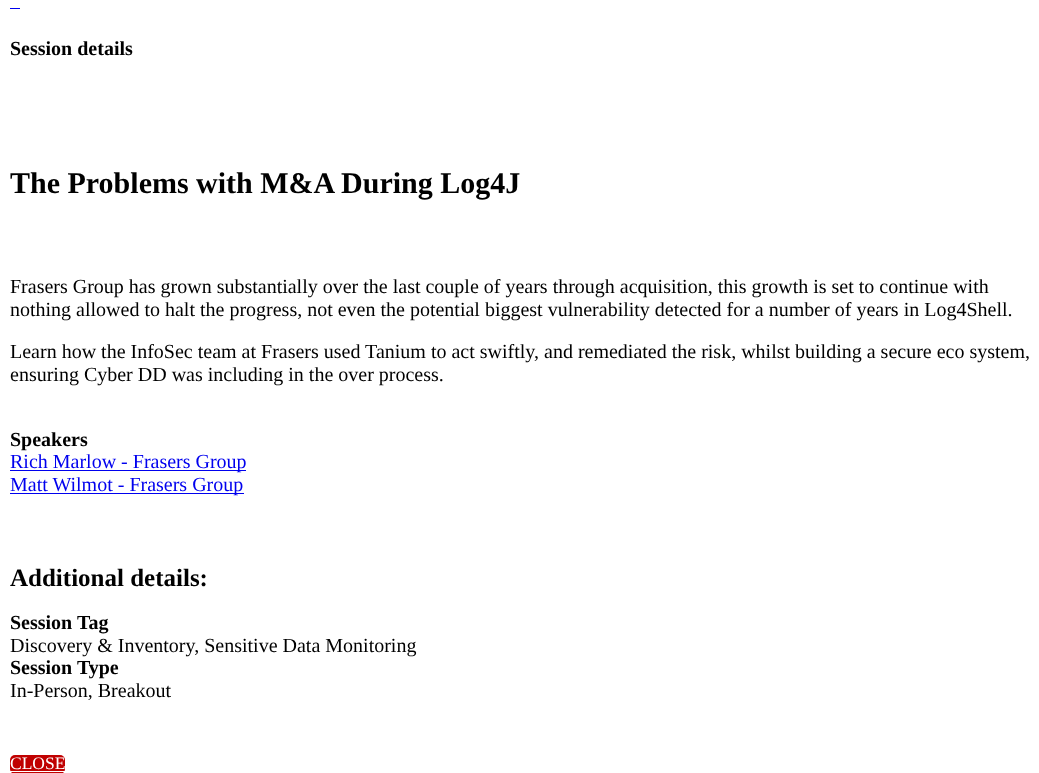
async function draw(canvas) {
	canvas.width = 1039;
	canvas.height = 773;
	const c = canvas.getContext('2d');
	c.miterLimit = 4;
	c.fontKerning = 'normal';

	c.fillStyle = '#fff';
	c.fillRect(0, 0, 1039, 773);
	c.fillStyle = '#00e';
	c.fillRect(10, 8, 10, 1);
	c.font = 'bold 20px Liberation Serif';
	c.fillStyle = '#000';
	c.fillText('Session details', 10, 55);
	c.font = 'bold 30px Liberation Serif';
	c.fillText('The Problems with M&A During Log4J', 10, 193);
	c.font = '20px Liberation Serif';
	for (const [text, x, y] of [
		['Frasers Group has grown substantially over the last couple of years through acquisition, this growth is set to continue with', 10, 293],
		['nothing allowed to halt the progress, not even the potential biggest vulnerability detected for a number of years in Log4Shell.', 10, 316],
		['Learn how the InfoSec team at Frasers used Tanium to act swiftly, and remediated the risk, whilst building a secure eco system,', 10, 358],
		['ensuring Cyber DD was including in the over process.', 10, 381],
	]) {
		c.fillText(text, x, y);
	}
	c.font = 'bold 20px Liberation Serif';
	c.fillText('Speakers', 10, 446);
	c.fillStyle = '#00e';
	c.fillRect(10, 470, 236, 1);
	c.font = '20px Liberation Serif';
	c.fillText('Rich Marlow - Frasers Group', 10, 468);
	c.fillRect(10, 493, 234, 1);
	c.fillText('Matt Wilmot - Frasers Group', 10, 491);
	c.font = 'bold 25px Liberation Serif';
	c.fillStyle = '#000';
	c.fillText('Additional details:', 10, 586);
	c.font = 'bold 20px Liberation Serif';
	c.fillText('Session Tag', 10, 629);
	c.font = '20px Liberation Serif';
	c.fillText('Discovery & Inventory, Sensitive Data Monitoring', 10, 652);
	c.font = 'bold 20px Liberation Serif';
	c.fillText('Session Type', 10, 674);
	c.font = '20px Liberation Serif';
	c.fillText('In-Person, Breakout', 10, 697);
	c.fillStyle = '#c00000';
	c.beginPath();
	c.roundRect(10, 755, 55, 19, 5);
	c.fill();
	c.font = '17.5px Liberation Serif';
	c.fillStyle = '#fff';
	c.fillText('CLOSE', 10, 769);
	c.fillRect(10, 771, 55, 1);
}

draw(document.querySelector('canvas'));
